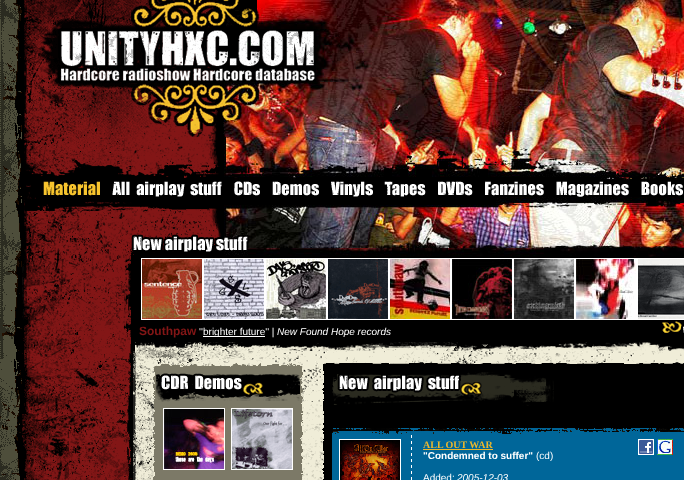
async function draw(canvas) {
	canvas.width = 684;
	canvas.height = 480;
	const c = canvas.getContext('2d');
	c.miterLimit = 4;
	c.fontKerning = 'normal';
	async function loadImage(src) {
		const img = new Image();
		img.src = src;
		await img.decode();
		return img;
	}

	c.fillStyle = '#fff';
	c.fillRect(0, 0, 684, 480);
	c.drawImage(await loadImage('img1.png'), 0, 0, 22, 480);
	c.drawImage(await loadImage('img2.png'), 0, 0, 22, 480);
	c.fillStyle = '#000';
	c.fillRect(22, 0, 662, 320);
	c.drawImage(await loadImage('img3.png'), 24, 0, 233, 29);
	c.drawImage(await loadImage('img4.png'), 257, 0, 427, 29);
	c.drawImage(await loadImage('img5.png'), 24, 29, 291, 53);
	c.drawImage(await loadImage('img6.png'), 316, 29, 368, 53);
	c.drawImage(await loadImage('img7.png'), 24, 82, 200, 55);
	c.drawImage(await loadImage('img8.png'), 224, 82, 460, 55);
	c.drawImage(await loadImage('img9.png'), 24, 137, 196, 41);
	c.drawImage(await loadImage('img10.png'), 224, 137, 460, 43);
	c.drawImage(await loadImage('img11.png'), 26, 181, 74, 16);
	c.drawImage(await loadImage('img12.png'), 112, 181, 110, 16);
	c.drawImage(await loadImage('img13.png'), 234, 181, 26, 15);
	c.drawImage(await loadImage('img14.png'), 272, 181, 47, 15);
	c.drawImage(await loadImage('img15.png'), 331, 181, 42, 16);
	c.drawImage(await loadImage('img16.png'), 384, 181, 42, 16);
	c.drawImage(await loadImage('img17.png'), 438, 181, 35, 15);
	c.drawImage(await loadImage('img18.png'), 485, 181, 59, 15);
	c.drawImage(await loadImage('img19.png'), 556, 181, 73, 16);
	c.drawImage(await loadImage('img20.png'), 641, 181, 42, 15);
	c.drawImage(await loadImage('img21.png'), 24, 197, 196, 35);
	c.drawImage(await loadImage('img22.png'), 224, 197, 460, 35);
	c.drawImage(await loadImage('img23.png'), 24, 232, 200, 25);
	c.drawImage(await loadImage('img24.png'), 224, 232, 460, 25);
	c.drawImage(await loadImage('img25.png'), 22, 257, 109, 63);
	c.strokeStyle = '#fff';
	c.strokeRect(141.5, 258.5, 61, 61);
	c.strokeRect(203.5, 258.5, 61, 61);
	c.strokeRect(265.5, 258.5, 61, 61);
	c.strokeRect(327.5, 258.5, 61, 61);
	c.strokeRect(389.5, 258.5, 61, 61);
	c.strokeRect(451.5, 258.5, 61, 61);
	c.strokeRect(513.5, 258.5, 61, 61);
	c.strokeRect(575.5, 258.5, 61, 61);
	c.strokeRect(637.5, 258.5, 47, 61);
	c.drawImage(await loadImage('img26.png'), 142, 259, 60, 60);
	c.drawImage(await loadImage('img27.png'), 204, 259, 60, 60);
	c.drawImage(await loadImage('img28.png'), 266, 259, 60, 60);
	c.drawImage(await loadImage('img29.png'), 328, 259, 60, 60);
	c.drawImage(await loadImage('img30.png'), 390, 259, 60, 60);
	c.drawImage(await loadImage('img31.png'), 452, 259, 60, 60);
	c.drawImage(await loadImage('img32.png'), 514, 259, 60, 60);
	c.drawImage(await loadImage('img33.png'), 576, 259, 60, 60);
	c.drawImage(await loadImage('img34.png'), 638, 259, 46, 60);
	c.drawImage(await loadImage('img35.png'), 22, 320, 111, 160);
	c.drawImage(await loadImage('img36.png'), 133, 351, 551, 129);
	c.fillRect(133, 320, 551, 22);
	c.font = 'bold 12px Liberation Sans';
	c.fillStyle = '#831616';
	c.fillText('Southpaw', 139, 335);
	c.font = '10px Liberation Sans';
	c.fillStyle = '#fff';
	c.fillText('\'\'', 199, 335);
	c.fillRect(203, 336, 62, 1);
	c.fillText('brighter future\'\' |', 203, 335);
	c.font = 'italic 10px Liberation Sans';
	c.fillText('New Found Hope records', 277, 335);
	c.drawImage(await loadImage('img37.png'), 662, 321, 22, 12);
	c.drawImage(await loadImage('img38.png'), 133, 342, 551, 9);
	c.drawImage(await loadImage('img39.png'), 153, 363, 150, 5);
	c.drawImage(await loadImage('img40.png'), 153, 368, 3, 112);
	c.fillStyle = '#7c7967';
	c.fillRect(156, 368, 144, 112);
	c.drawImage(await loadImage('img41.png'), 156, 373, 144, 29);
	c.strokeRect(163.5, 408.5, 61, 61);
	c.strokeRect(231.5, 408.5, 61, 61);
	c.drawImage(await loadImage('img42.png'), 164, 409, 60, 60);
	c.drawImage(await loadImage('img43.png'), 232, 409, 60, 60);
	c.drawImage(await loadImage('img44.png'), 300, 368, 3, 112);
	c.drawImage(await loadImage('img45.png'), 324, 362, 360, 2);
	c.drawImage(await loadImage('img46.png'), 322, 364, 3, 116);
	c.fillStyle = '#000';
	c.fillRect(325, 364, 359, 116);
	c.drawImage(await loadImage('img47.png'), 332, 372, 222, 34);
	c.fillStyle = '#069';
	c.fillRect(332, 428, 352, 52);
	c.drawImage(await loadImage('img48.png'), 332, 428, 352, 6);
	c.strokeRect(339.5, 439.5, 61, 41);
	c.drawImage(await loadImage('img49.png'), 340, 440, 60, 40);
	c.drawImage(await loadImage('img50.png'), 411, 435, 1, 45);
	c.font = 'bold 10px Liberation Serif';
	c.fillStyle = '#ebb82d';
	c.fillText('ALL OUT WAR', 423, 448);
	c.fillRect(423, 449, 70, 1);
	c.font = 'bold 10px Liberation Sans';
	c.fillStyle = '#fff';
	c.fillText('"Condemned to suffer"', 423, 459);
	c.font = '10px Liberation Sans';
	c.fillText('(cd)', 536, 459);
	c.fillText('Added:', 423, 481);
	c.font = 'italic 10px Liberation Sans';
	c.fillText('2005-12-03', 457, 481);
	c.drawImage(await loadImage('img51.png'), 638, 439, 16, 16);
	c.drawImage(await loadImage('img52.png'), 657, 439, 16, 16);
}

draw(document.querySelector('canvas'));
